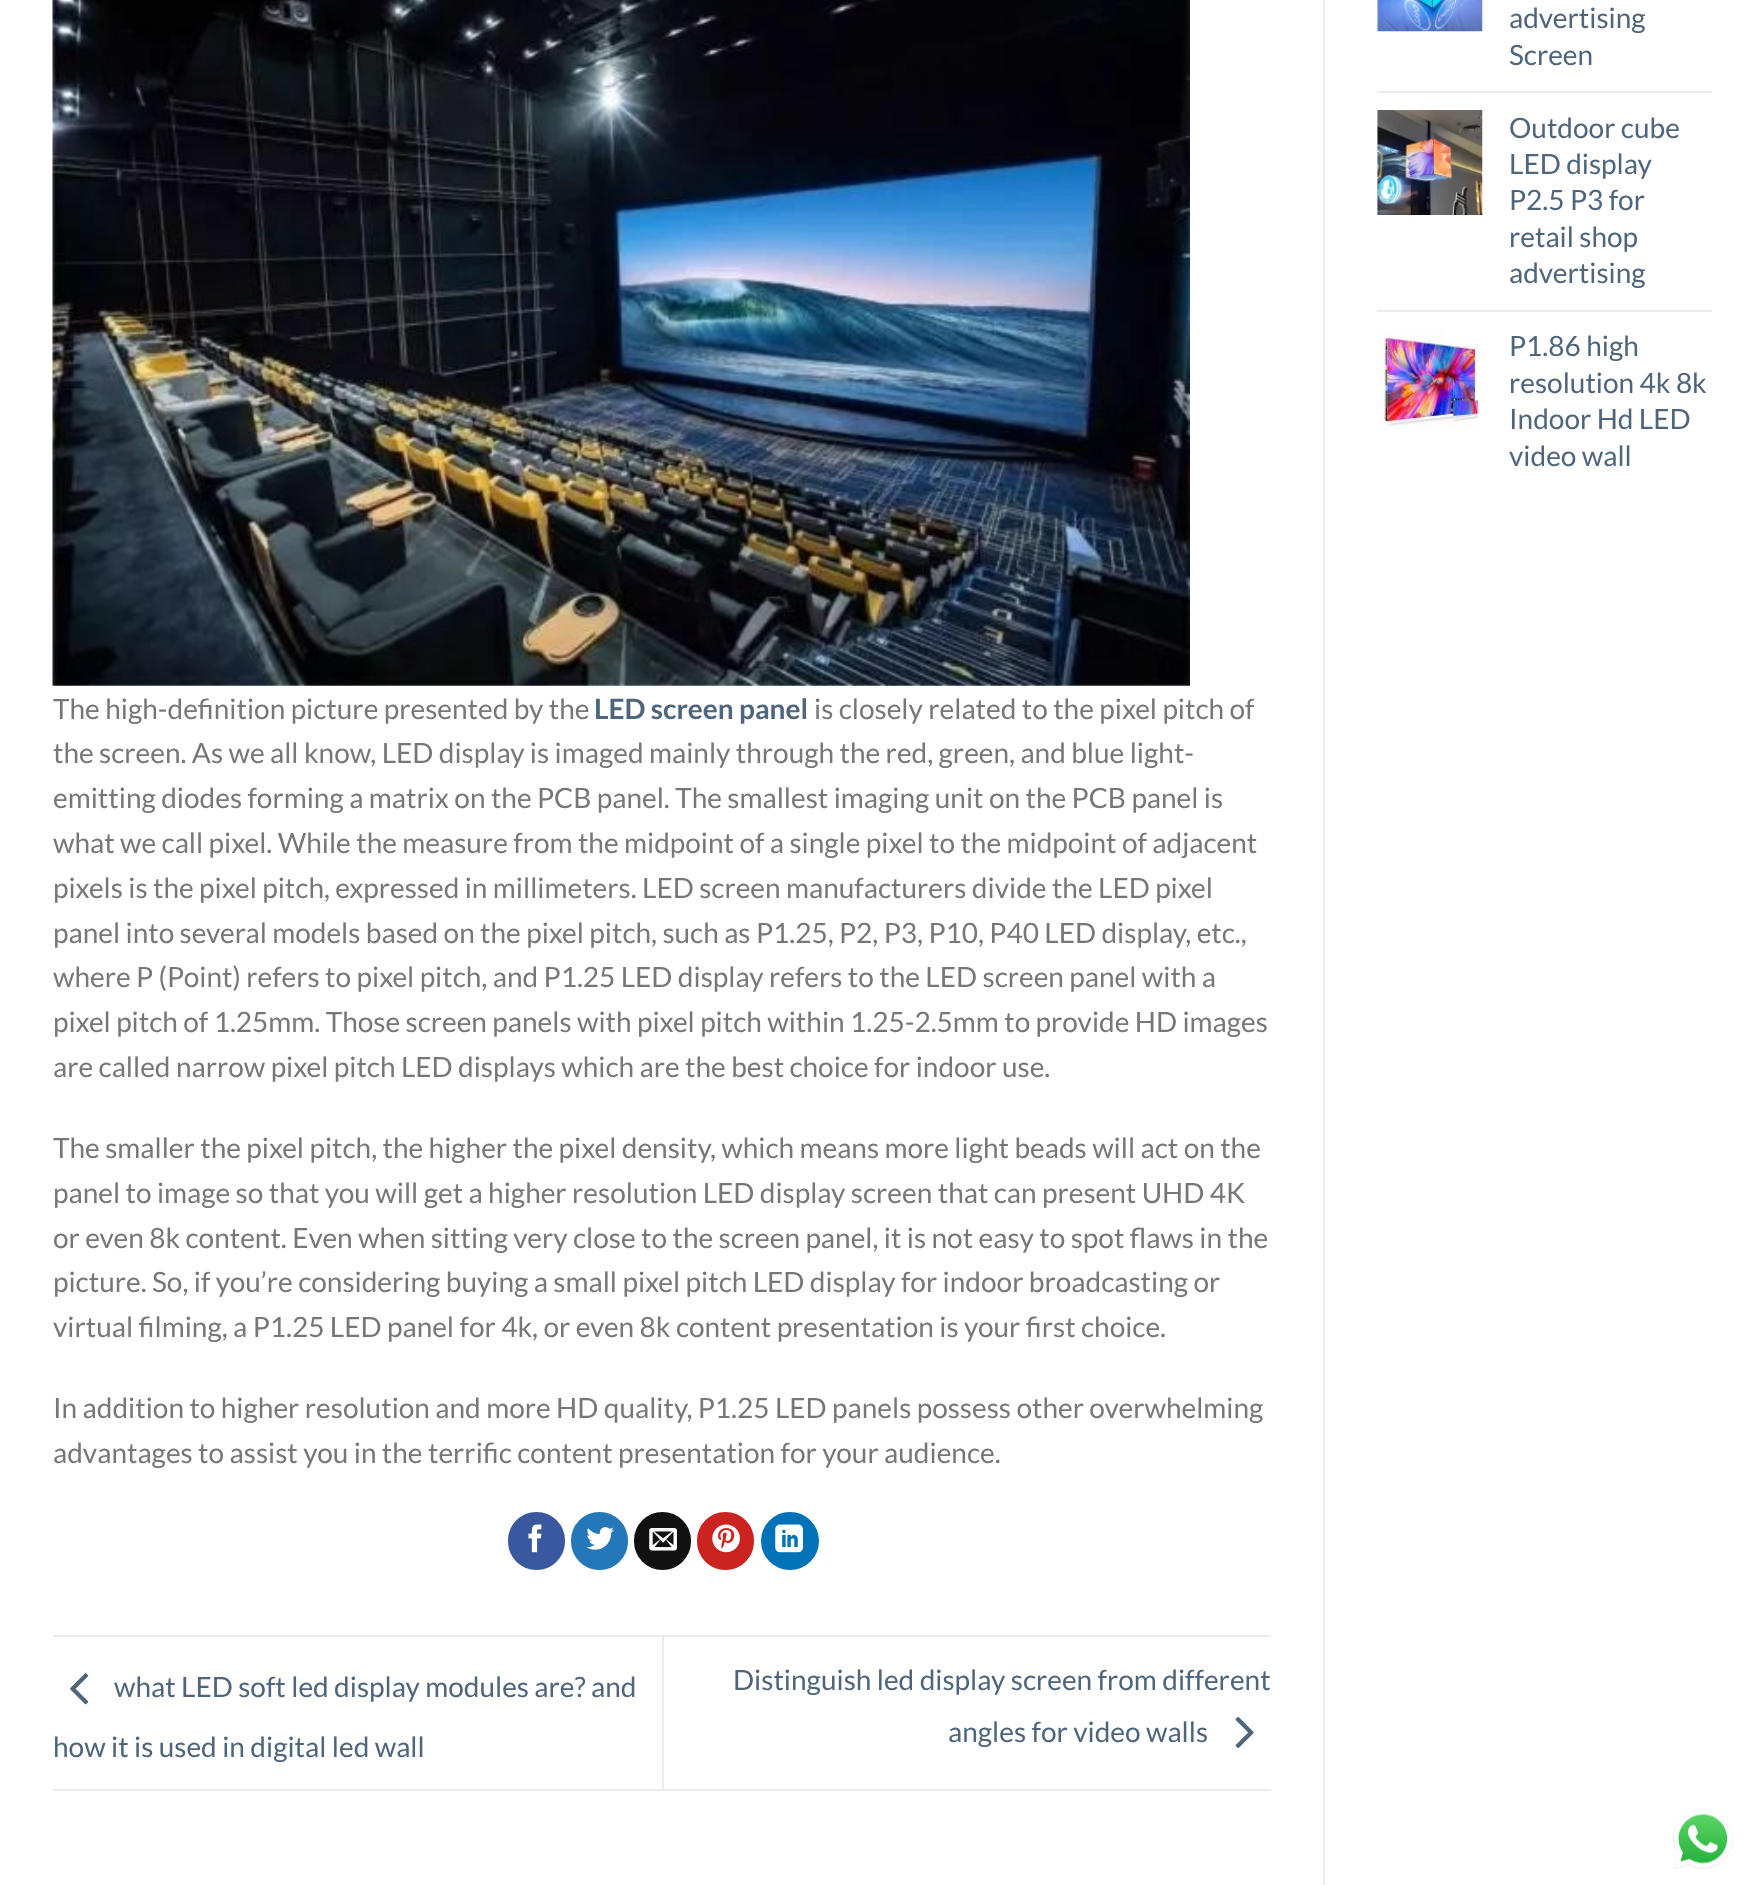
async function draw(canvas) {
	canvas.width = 1764;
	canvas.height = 1885;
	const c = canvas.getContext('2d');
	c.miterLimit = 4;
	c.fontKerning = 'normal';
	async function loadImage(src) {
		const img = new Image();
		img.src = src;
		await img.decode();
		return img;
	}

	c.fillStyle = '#fff';
	c.fillRect(0, 0, 1764, 1885);
	c.fillStyle = '#ececec';
	c.fillRect(1323, 0, 2, 1885);
	c.drawImage(await loadImage('img1.png'), 1377, 0, 106, 32);
	c.font = '28px Lato';
	c.fillStyle = '#4e657b';
	c.fillText('advertising', 1509, 28);
	c.fillText('Screen', 1509, 65);
	c.fillStyle = '#ececec';
	c.fillRect(1377, 91, 335, 2);
	c.drawImage(await loadImage('img2.png'), 1377, 110, 106, 105);
	c.fillStyle = '#4e657b';
	for (const [text, x, y] of [
		['Outdoor cube', 1509, 138],
		['LED display', 1509, 174],
		['P2.5 P3 for', 1509, 210],
		['retail shop', 1509, 247],
		['advertising', 1509, 283],
	]) {
		c.fillText(text, x, y);
	}
	c.fillStyle = '#ececec';
	c.fillRect(1377, 310, 335, 2);
	c.drawImage(await loadImage('img3.png'), 1377, 329, 102, 101);
	c.fillStyle = '#4e657b';
	for (const [text, x, y] of [
		['P1.86 high', 1509, 356],
		['resolution 4k 8k', 1509, 393],
		['Indoor Hd LED', 1509, 429],
		['video wall', 1509, 466],
	]) {
		c.fillText(text, x, y);
	}
	c.drawImage(await loadImage('img4.png'), 52, 0, 1138, 686);
	c.fillStyle = '#777';
	c.fillText('The high-definition picture presented by the', 53, 719);
	c.font = 'bold 28px Lato';
	c.fillStyle = '#4e657b';
	c.fillText('LED screen panel', 594, 719);
	c.font = '28px Lato';
	c.fillStyle = '#777';
	for (const [text, x, y] of [
		['is closely related to the pixel pitch of', 814, 719],
		['the screen. As we all know, LED display is imaged mainly through the red, green, and blue light-', 53, 763],
		['emitting diodes forming a matrix on the PCB panel. The smallest imaging unit on the PCB panel is', 53, 808],
		['what we call pixel. While the measure from the midpoint of a single pixel to the midpoint of adjacent', 53, 853],
		['pixels is the pixel pitch, expressed in millimeters. LED screen manufacturers divide the LED pixel', 53, 898],
		['panel into several models based on the pixel pitch, such as P1.25, P2, P3, P10, P40 LED display, etc.,', 53, 943],
		['where P (Point) refers to pixel pitch, and P1.25 LED display refers to the LED screen panel with a', 53, 987],
		['pixel pitch of 1.25mm. Those screen panels with pixel pitch within 1.25-2.5mm to provide HD images', 53, 1032],
		['are called narrow pixel pitch LED displays which are the best choice for indoor use.', 53, 1077],
		['The smaller the pixel pitch, the higher the pixel density, which means more light beads will act on the', 53, 1158],
		['panel to image so that you will get a higher resolution LED display screen that can present UHD 4K', 53, 1203],
		['or even 8k content. Even when sitting very close to the screen panel, it is not easy to spot flaws in the', 53, 1248],
		['picture. So, if you’re considering buying a small pixel pitch LED display for indoor broadcasting or', 53, 1292],
		['virtual filming, a P1.25 LED panel for 4k, or even 8k content presentation is your first choice.', 53, 1337],
		['In addition to higher resolution and more HD quality, P1.25 LED panels possess other overwhelming', 53, 1418],
		['advantages to assist you in the terrific content presentation for your audience.', 53, 1463],
	]) {
		c.fillText(text, x, y);
	}
	c.fillStyle = '#3a589d';
	c.beginPath();
	c.roundRect(509, 1513, 55, 56, 27.5);
	c.fill();
	c.strokeStyle = '#3a589d';
	c.lineWidth = 2;
	c.stroke();
	c.drawImage(await loadImage('img5.png'), 528, 1524, 14, 29);
	c.fillStyle = '#2478ba';
	c.beginPath();
	c.roundRect(572, 1513, 55, 56, 27.5);
	c.fill();
	c.strokeStyle = '#2478ba';
	c.stroke();
	c.drawImage(await loadImage('img6.png'), 586, 1527, 28, 23);
	c.fillStyle = '#111';
	c.beginPath();
	c.roundRect(635, 1513, 55, 56, 27.5);
	c.fill();
	c.strokeStyle = '#111';
	c.stroke();
	c.drawImage(await loadImage('img7.png'), 649, 1528, 28, 23);
	c.fillStyle = '#cb2320';
	c.beginPath();
	c.roundRect(698, 1513, 55, 56, 27.5);
	c.fill();
	c.strokeStyle = '#cb2320';
	c.stroke();
	c.drawImage(await loadImage('img8.png'), 712, 1524, 28, 29);
	c.fillStyle = '#0072b7';
	c.beginPath();
	c.arc(790, 1541, 28, 0, 2 * Math.PI);
	c.fill();
	c.strokeStyle = '#0072b7';
	c.stroke();
	c.drawImage(await loadImage('img9.png'), 775, 1524, 28, 29);
	c.fillStyle = '#ececec';
	c.fillRect(53, 1635, 1218, 2);
	c.fillRect(53, 1789, 1218, 2);
	c.drawImage(await loadImage('img10.png'), 70, 1673, 19, 32);
	c.fillStyle = '#4e657b';
	c.fillText('what LED soft led display modules are? and', 114, 1697);
	c.fillText('how it is used in digital led wall', 53, 1757);
	c.fillStyle = '#ececec';
	c.fillRect(662, 1636, 2, 153);
	c.fillStyle = '#4e657b';
	c.fillText('Distinguish led display screen from different', 733, 1690);
	c.fillText('angles for video walls', 948, 1742);
	c.drawImage(await loadImage('img11.png'), 1235, 1716, 19, 33);
	c.drawImage(await loadImage('img12.png'), 1673, 1809, 60, 60);
}

draw(document.querySelector('canvas'));
